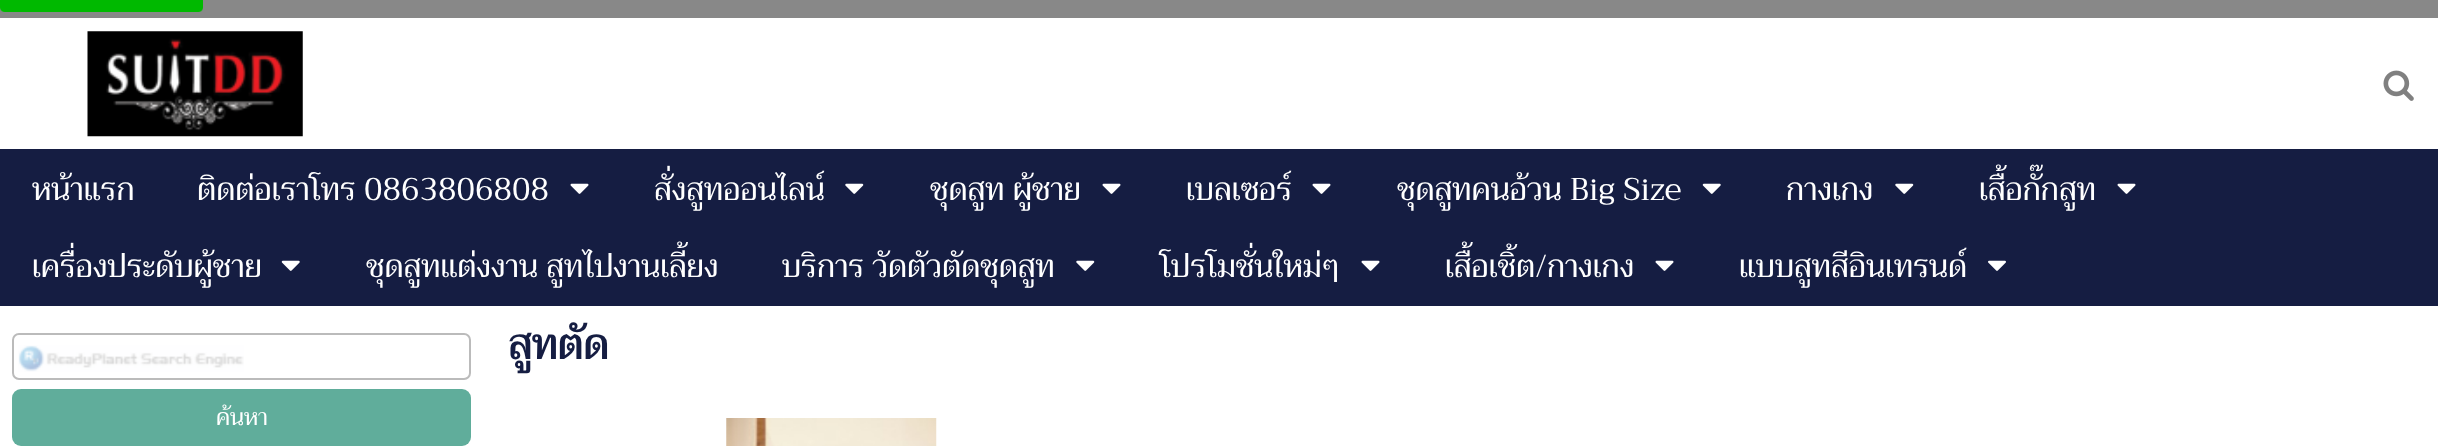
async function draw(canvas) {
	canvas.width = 2438;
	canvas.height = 446;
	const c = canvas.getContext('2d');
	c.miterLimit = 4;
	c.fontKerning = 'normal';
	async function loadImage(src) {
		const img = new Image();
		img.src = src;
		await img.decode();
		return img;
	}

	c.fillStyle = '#888';
	c.fillRect(0, 0, 2438, 446);
	c.drawImage(await loadImage('img1.png'), 0, 0, 203, 12);
	c.fillStyle = '#fff';
	c.fillRect(0, 18, 2438, 428);
	c.drawImage(await loadImage('img2.png'), 87, 31, 216, 106);
	c.drawImage(await loadImage('img3.png'), 2383, 70, 31, 31);
	c.fillStyle = '#151d42';
	c.fillRect(0, 149, 2438, 157);
	c.font = '31.5px Trirong';
	c.fillStyle = '#fff';
	c.fillText('หน้าแรก', 32, 200);
	c.fillText('ติดต่อเราโทร 0863806808', 197, 200);
	c.drawImage(await loadImage('img4.png'), 570, 183, 19, 11);
	c.fillText('สั่งสูทออนไลน์', 654, 200);
	c.drawImage(await loadImage('img5.png'), 845, 183, 19, 11);
	c.fillText('ชุดสูท ผู้ชาย', 930, 200);
	c.drawImage(await loadImage('img4.png'), 1102, 183, 19, 11);
	c.fillText('เบลเซอร์', 1186, 200);
	c.drawImage(await loadImage('img4.png'), 1312, 183, 19, 11);
	c.fillText('ชุดสูทคนอ้วน Big Size', 1397, 200);
	c.drawImage(await loadImage('img6.png'), 1702, 183, 19, 11);
	c.fillText('กางเกง', 1786, 200);
	c.drawImage(await loadImage('img7.png'), 1895, 183, 19, 11);
	c.fillText('เสื้อกั๊กสูท', 1979, 200);
	c.drawImage(await loadImage('img4.png'), 2117, 183, 19, 11);
	c.fillText('เครื่องประดับผู้ชาย', 32, 277);
	c.drawImage(await loadImage('img6.png'), 281, 260, 19, 11);
	c.fillText('ชุดสูทแต่งงาน สูทไปงานเลี้ยง', 366, 277);
	c.fillText('บริการ วัดตัวตัดชุดสูท', 782, 277);
	c.drawImage(await loadImage('img5.png'), 1076, 260, 19, 11);
	c.fillText('โปรโมชั่นใหม่ๆ', 1160, 277);
	c.drawImage(await loadImage('img4.png'), 1361, 260, 19, 11);
	c.fillText('เสื้อเชิ้ต/กางเกง', 1445, 277);
	c.drawImage(await loadImage('img4.png'), 1655, 260, 19, 11);
	c.fillText('แบบสูทสีอินเทรนด์', 1739, 277);
	c.drawImage(await loadImage('img8.png'), 1988, 260, 18, 11);
	c.font = 'bold 42px Trirong';
	c.fillStyle = '#151d42';
	c.fillText('สูทตัด', 508, 359);
	c.drawImage(await loadImage('img9.png'), 18, 345, 226, 27);
	c.beginPath();
	c.roundRect(13, 334, 457, 45, 6);
	c.strokeStyle = '#bbb';
	c.lineWidth = 2;
	c.stroke();
	c.fillStyle = '#60ad9b';
	c.beginPath();
	c.roundRect(12, 389, 459, 57, 9);
	c.fill();
	c.font = '23px Trirong';
	c.fillStyle = '#fff';
	c.fillText('ค้นหา', 216, 425);
	c.drawImage(await loadImage('img10.png'), 726, 418, 211, 28);
}

draw(document.querySelector('canvas'));
